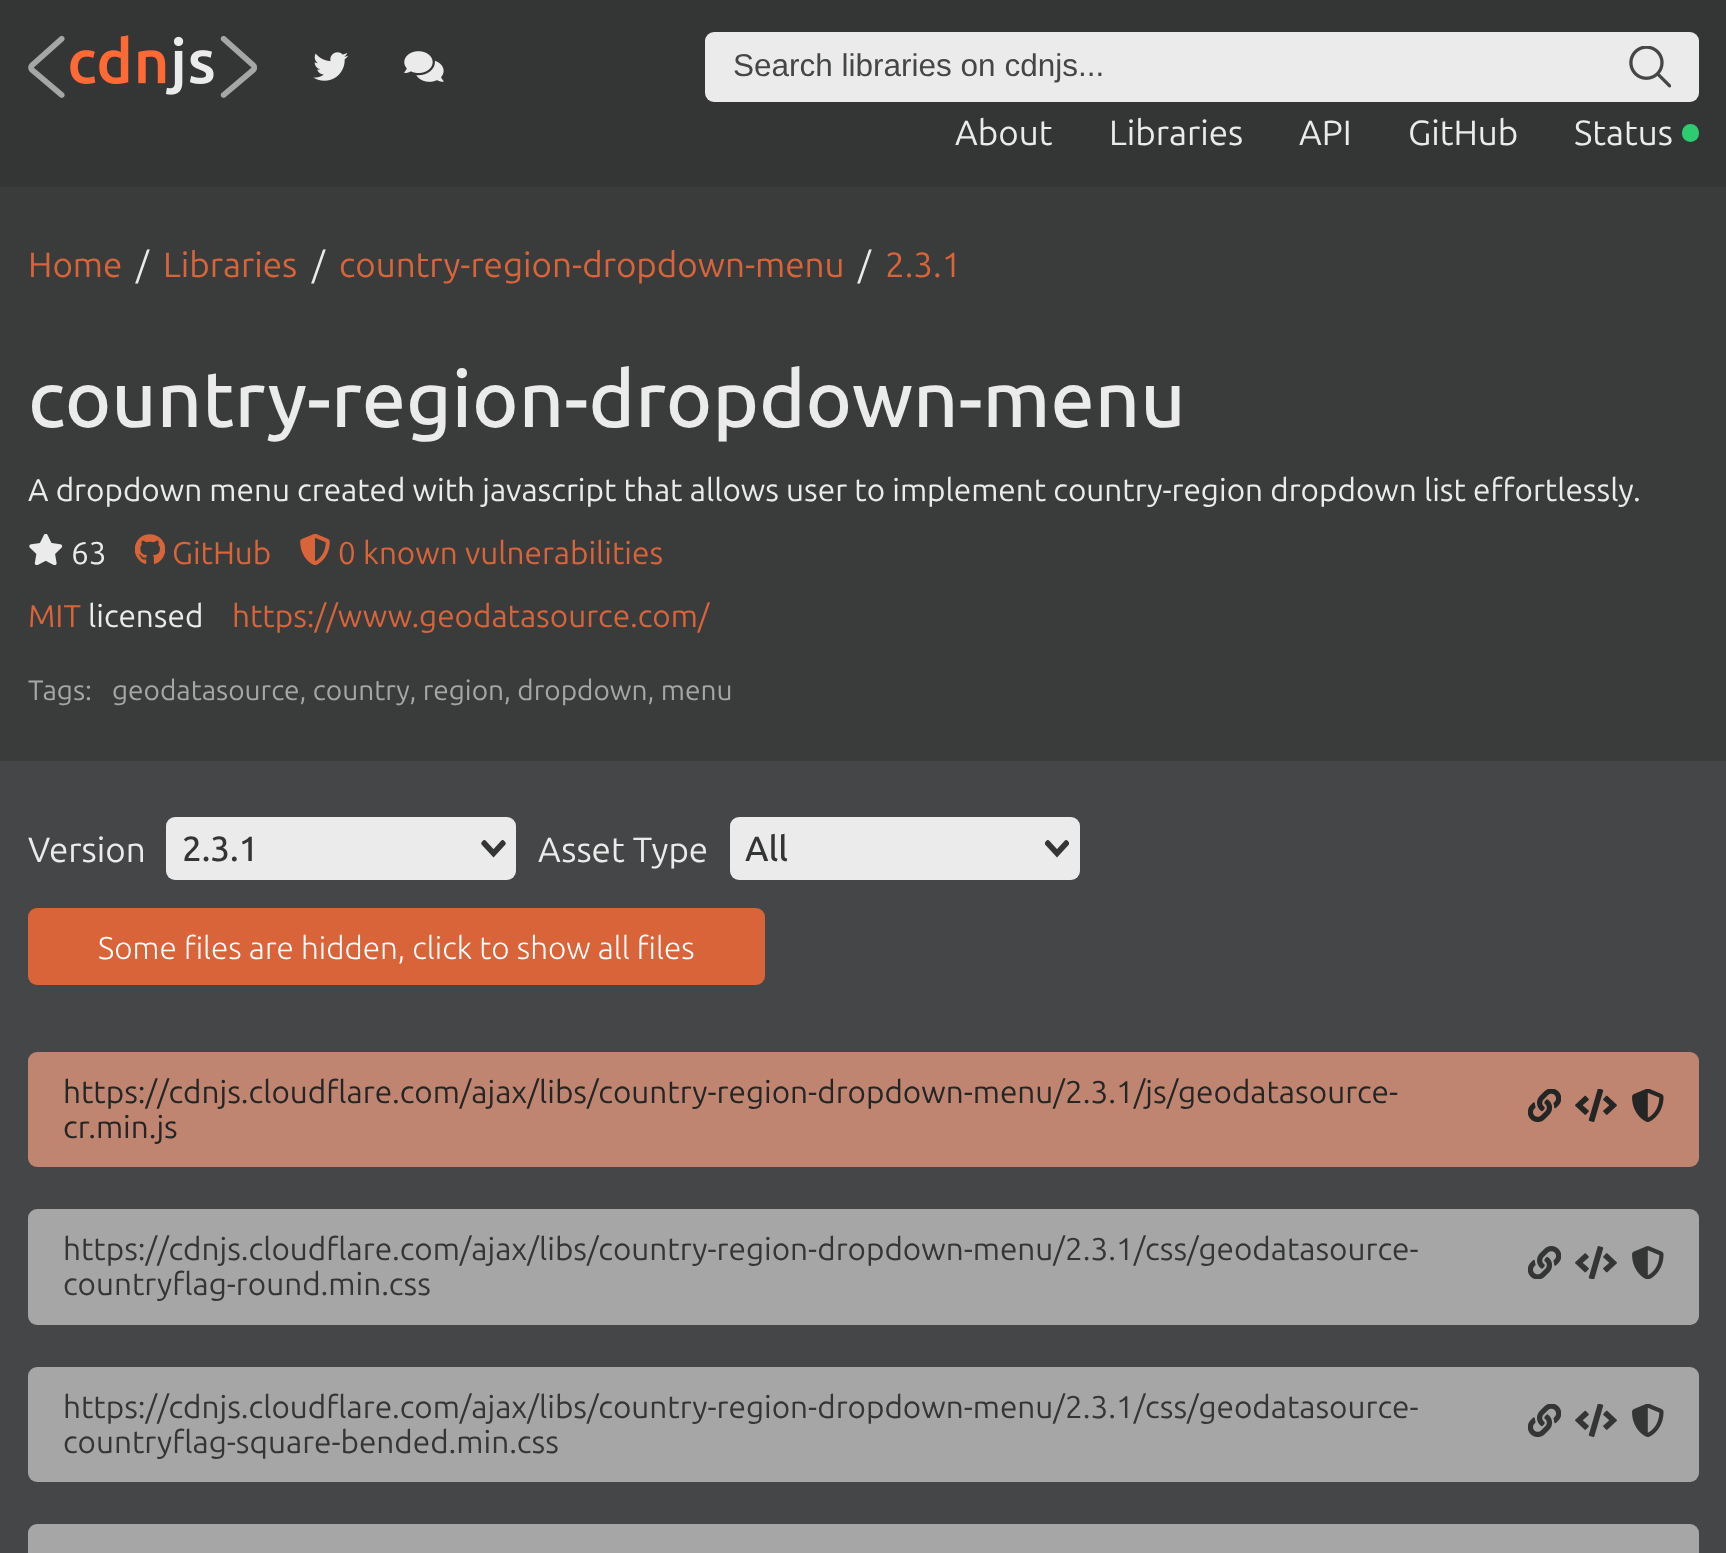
async function draw(canvas) {
	canvas.width = 1726;
	canvas.height = 1553;
	const c = canvas.getContext('2d');
	c.miterLimit = 4;
	c.fontKerning = 'normal';
	async function loadImage(src) {
		const img = new Image();
		img.src = src;
		await img.decode();
		return img;
	}

	c.fillStyle = '#454647';
	c.fillRect(0, 0, 1726, 1553);
	c.fillStyle = '#343535';
	c.fillRect(0, 0, 1726, 187);
	c.drawImage(await loadImage('img1.png'), 28, 35, 229, 63);
	c.drawImage(await loadImage('img2.png'), 313, 52, 35, 29);
	c.drawImage(await loadImage('img3.png'), 404, 51, 40, 31);
	c.fillStyle = '#ebebeb';
	c.beginPath();
	c.roundRect(705, 32, 994, 70, 9);
	c.fill();
	c.font = '31.5px Liberation Sans';
	c.fillStyle = '#454647';
	c.fillText('Search libraries on cdnjs...', 733, 76);
	c.drawImage(await loadImage('img4.png'), 1629, 46, 42, 42);
	c.font = '35px Ubuntu';
	c.fillStyle = '#ebebeb';
	for (const [text, x, y] of [
		['About', 955, 145],
		['Libraries', 1109, 145],
		['API', 1299, 145],
		['GitHub', 1408, 145],
		['Status', 1574, 145],
	]) {
		c.fillText(text, x, y);
	}
	c.fillStyle = '#2ecc71';
	c.beginPath();
	c.roundRect(1682, 124, 17, 18, 8.5);
	c.fill();
	c.fillStyle = '#3a3c3c';
	c.fillRect(0, 187, 1726, 574);
	c.fillStyle = '#d9643a';
	c.fillText('Home', 28, 277);
	c.fillStyle = '#ebebeb';
	c.fillText('/', 136, 277);
	c.fillStyle = '#d9643a';
	c.fillText('Libraries', 163, 277);
	c.fillStyle = '#ebebeb';
	c.fillText('/', 312, 277);
	c.fillStyle = '#d9643a';
	c.fillText('country-region-dropdown-menu', 339, 277);
	c.fillStyle = '#ebebeb';
	c.fillText('/', 858, 277);
	c.fillStyle = '#d9643a';
	c.fillText('2.3.1', 885, 277);
	c.font = '500 78.75px Ubuntu';
	c.fillStyle = '#ebebeb';
	c.fillText('country-region-dropdown-menu', 28, 427);
	c.font = '31.5px Ubuntu';
	c.fillText('A dropdown menu created with javascript that allows user to implement country-region dropdown list effortlessly.', 28, 501);
	c.drawImage(await loadImage('img5.png'), 29, 534, 34, 31);
	c.fillText('63', 71, 564);
	c.drawImage(await loadImage('img6.png'), 135, 534, 30, 30);
	c.fillStyle = '#d9643a';
	c.fillText('GitHub', 172, 564);
	c.drawImage(await loadImage('img7.png'), 300, 534, 30, 31);
	c.fillText('0 known vulnerabilities', 338, 564);
	c.fillText('MIT', 28, 627);
	c.fillStyle = '#ebebeb';
	c.fillText('licensed', 88, 627);
	c.fillStyle = '#d9643a';
	c.fillText('https://www.geodatasource.com/', 232, 627);
	c.font = '28px Ubuntu';
	c.fillStyle = '#a6a6a6';
	c.fillText('Tags:', 28, 700);
	c.fillText('geodatasource, country, region, dropdown, menu', 112, 700);
	c.font = '35px Ubuntu';
	c.fillStyle = '#ebebeb';
	c.fillText('Version', 28, 862);
	c.beginPath();
	c.roundRect(166, 817, 350, 63, 9);
	c.fill();
	c.font = '500 35px Ubuntu';
	c.fillStyle = '#343535';
	c.fillText('2.3.1', 182, 861);
	c.drawImage(await loadImage('img8.png'), 481, 840, 25, 18);
	c.font = '35px Ubuntu';
	c.fillStyle = '#ebebeb';
	c.fillText('Asset Type', 538, 862);
	c.beginPath();
	c.roundRect(730, 817, 350, 63, 9);
	c.fill();
	c.font = '500 35px Ubuntu';
	c.fillStyle = '#343535';
	c.fillText('All', 745, 861);
	c.drawImage(await loadImage('img9.png'), 1045, 840, 24, 18);
	c.fillStyle = '#d9643a';
	c.beginPath();
	c.roundRect(28, 908, 737, 77, 9);
	c.fill();
	c.font = '300 31.5px Ubuntu';
	c.fillStyle = '#fff';
	c.fillText('Some files are hidden, click to show all files', 98, 959);
	c.fillStyle = '#c08570';
	c.beginPath();
	c.roundRect(28, 1052, 1671, 115, 9);
	c.fill();
	c.font = '31.5px Ubuntu';
	c.fillStyle = '#242525';
	c.fillText('https://cdnjs.cloudflare.com/ajax/libs/country-region-dropdown-menu/2.3.1/js/geodatasource-', 63, 1103);
	c.fillText('cr.min.js', 63, 1138);
	c.drawImage(await loadImage('img10.png'), 1528, 1089, 33, 33);
	c.drawImage(await loadImage('img11.png'), 1575, 1089, 42, 33);
	c.drawImage(await loadImage('img12.png'), 1632, 1089, 32, 33);
	c.fillStyle = '#a6a6a6';
	c.beginPath();
	c.roundRect(28, 1209, 1671, 116, 9);
	c.fill();
	c.fillStyle = '#343535';
	c.fillText('https://cdnjs.cloudflare.com/ajax/libs/country-region-dropdown-menu/2.3.1/css/geodatasource-', 63, 1260);
	c.fillText('countryflag-round.min.css', 63, 1295);
	c.drawImage(await loadImage('img13.png'), 1528, 1246, 33, 33);
	c.drawImage(await loadImage('img14.png'), 1575, 1246, 42, 33);
	c.drawImage(await loadImage('img15.png'), 1632, 1246, 32, 33);
	c.fillStyle = '#a6a6a6';
	c.beginPath();
	c.roundRect(28, 1367, 1671, 115, 9);
	c.fill();
	c.fillStyle = '#343535';
	c.fillText('https://cdnjs.cloudflare.com/ajax/libs/country-region-dropdown-menu/2.3.1/css/geodatasource-', 63, 1418);
	c.fillText('countryflag-square-bended.min.css', 63, 1453);
	c.drawImage(await loadImage('img16.png'), 1528, 1404, 33, 33);
	c.drawImage(await loadImage('img17.png'), 1575, 1404, 42, 33);
	c.drawImage(await loadImage('img18.png'), 1632, 1404, 32, 33);
	c.fillStyle = '#a6a6a6';
	c.beginPath();
	c.roundRect(28, 1524, 1671, 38, 9);
	c.fill();
}

draw(document.querySelector('canvas'));
